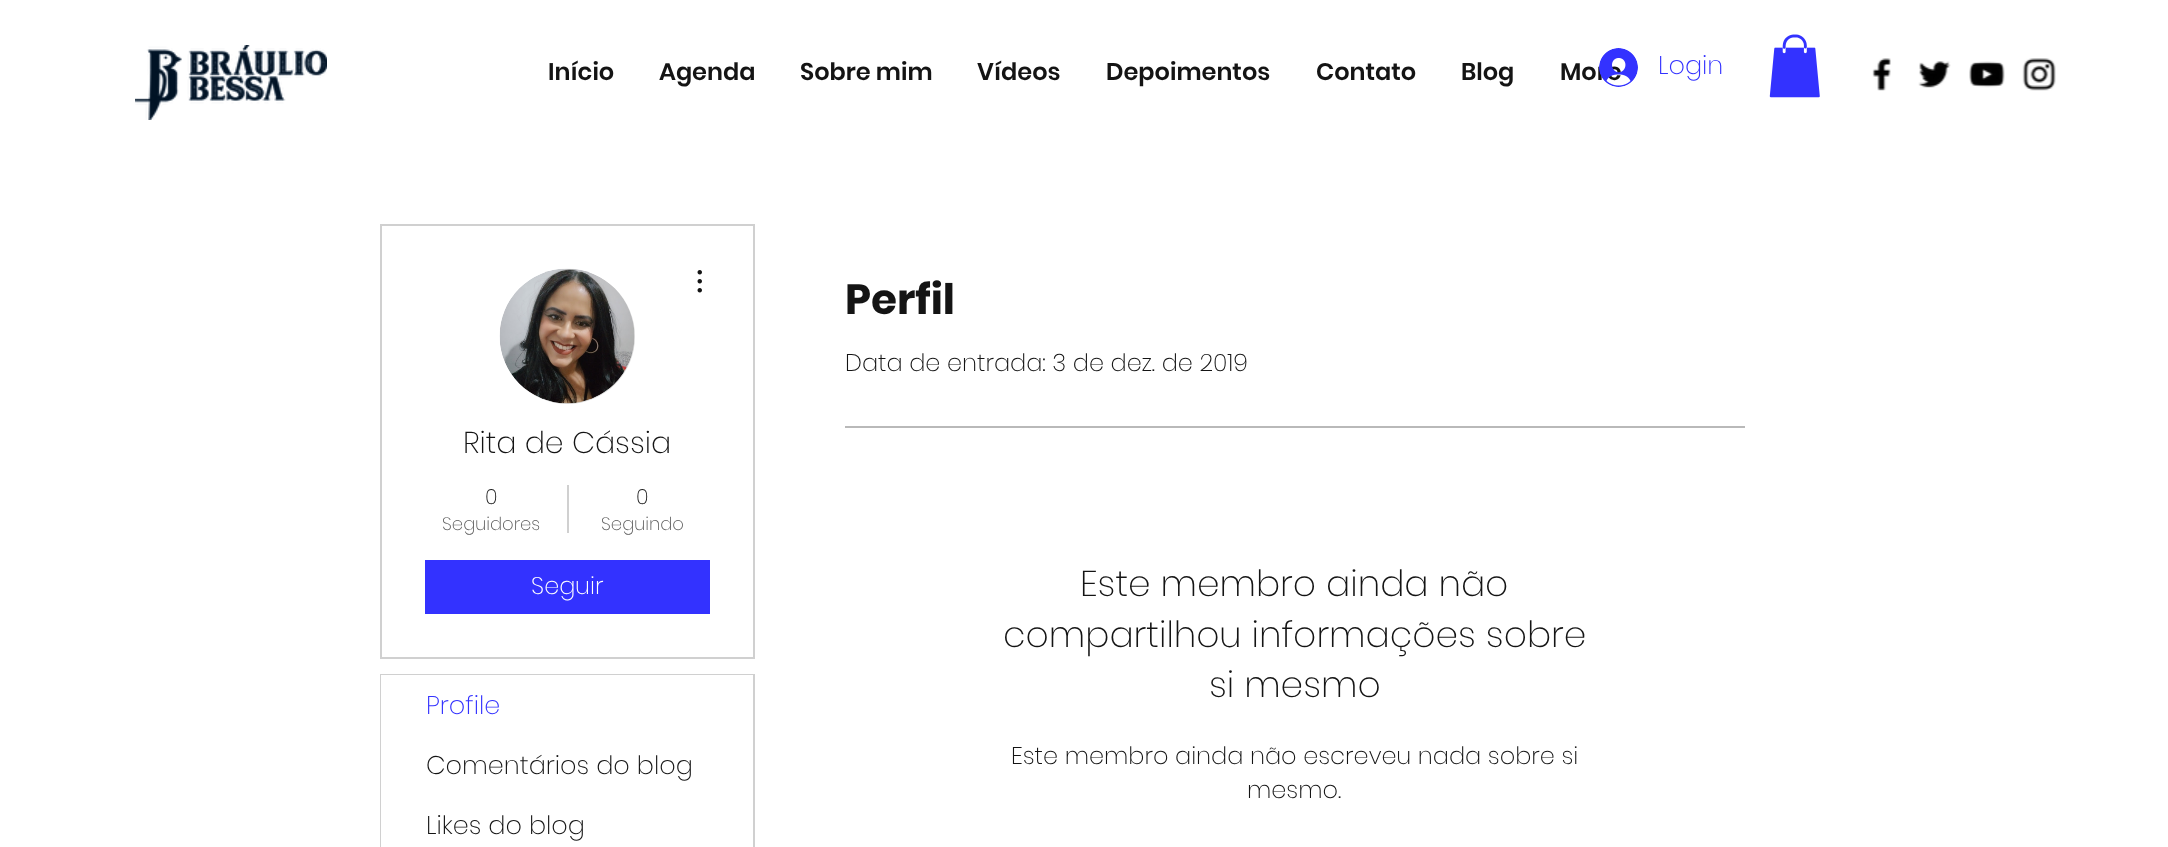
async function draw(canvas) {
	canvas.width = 2168;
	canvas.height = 847;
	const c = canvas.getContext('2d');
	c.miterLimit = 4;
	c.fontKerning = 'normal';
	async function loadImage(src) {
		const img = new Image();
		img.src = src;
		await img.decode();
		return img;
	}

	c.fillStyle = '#fff';
	c.fillRect(0, 0, 2168, 847);
	c.drawImage(await loadImage('img1.png'), 135, 45, 192, 75);
	c.font = '600 24px Poppins';
	c.fillStyle = '#141414';
	for (const [text, x, y] of [
		['Início', 548, 80],
		['Agenda', 659, 80],
		['Sobre mim', 800, 80],
		['Vídeos', 977, 80],
		['Depoimentos', 1106, 80],
		['Contato', 1316, 80],
		['Blog', 1461, 80],
		['More', 1560, 80],
	]) {
		c.fillText(text, x, y);
	}
	c.drawImage(await loadImage('img2.png'), 1599, 48, 39, 39);
	c.font = '200 25.5px Poppins';
	c.fillStyle = '#3332ff';
	c.fillText('Login', 1658, 74);
	c.drawImage(await loadImage('img3.png'), 1769, 34, 51, 64);
	c.drawImage(await loadImage('img4.png'), 1872, 58, 19, 33);
	c.drawImage(await loadImage('img5.png'), 1918, 61, 33, 27);
	c.drawImage(await loadImage('img6.png'), 1969, 61, 36, 27);
	c.drawImage(await loadImage('img7.png'), 2022, 58, 34, 33);
	c.strokeStyle = '#d0d0d0';
	c.lineWidth = 2;
	c.strokeRect(381, 225, 373, 433);
	c.fillStyle = '#d8d8d8';
	c.beginPath();
	c.arc(567.5, 336.5, 67.5, 0, 2 * Math.PI);
	c.fill();
	c.drawImage(await loadImage('img8.png'), 499, 268, 135, 136);
	c.drawImage(await loadImage('img9.png'), 697, 270, 5, 23);
	c.font = '200 30px Poppins';
	c.fillStyle = '#141414';
	c.fillText('Rita de Cássia', 463, 453);
	c.font = '200 21px Poppins';
	c.fillText('0', 485, 504);
	c.font = '200 18px Poppins';
	c.fillStyle = '#5b5b5b';
	c.fillText('Seguidores', 442, 530);
	c.fillStyle = '#d0d0d0';
	c.fillRect(567, 485, 2, 48);
	c.font = '200 21px Poppins';
	c.fillStyle = '#141414';
	c.fillText('0', 636, 504);
	c.font = '200 18px Poppins';
	c.fillStyle = '#5b5b5b';
	c.fillText('Seguindo', 601, 530);
	c.fillStyle = '#3332ff';
	c.fillRect(425, 560, 285, 54);
	c.font = '200 24px Poppins';
	c.fillStyle = '#fff';
	c.fillText('Seguir', 531, 594);
	c.strokeRect(381, 675, 373, 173);
	c.fillRect(381, 675, 372, 60);
	c.font = '200 25.5px Poppins';
	c.fillStyle = '#3332ff';
	c.fillText('Profile', 426, 714);
	c.fillStyle = '#fff';
	c.fillRect(381, 735, 1, 112);
	c.fillStyle = '#141414';
	c.fillText('Comentários do blog', 426, 774);
	c.fillText('Likes do blog', 426, 834);
	c.font = 'bold 42px Poppins';
	c.fillText('Perfil', 845, 314);
	c.font = '200 24px Poppins';
	c.fillText('Data de entrada: 3 de dez. de 2019', 845, 371);
	c.fillStyle = '#b9b9b9';
	c.fillRect(845, 426, 900, 2);
	c.font = '200 36px Poppins';
	c.fillStyle = '#141414';
	for (const [text, x, y] of [
		['Este membro ainda não', 1080, 596],
		['compartilhou informações sobre', 1003, 647],
		['si mesmo', 1209, 697],
	]) {
		c.fillText(text, x, y);
	}
	c.font = '200 24px Poppins';
	c.fillText('Este membro ainda não escreveu nada sobre si', 1011, 764);
	c.fillText('mesmo.', 1247, 798);
}

draw(document.querySelector('canvas'));
